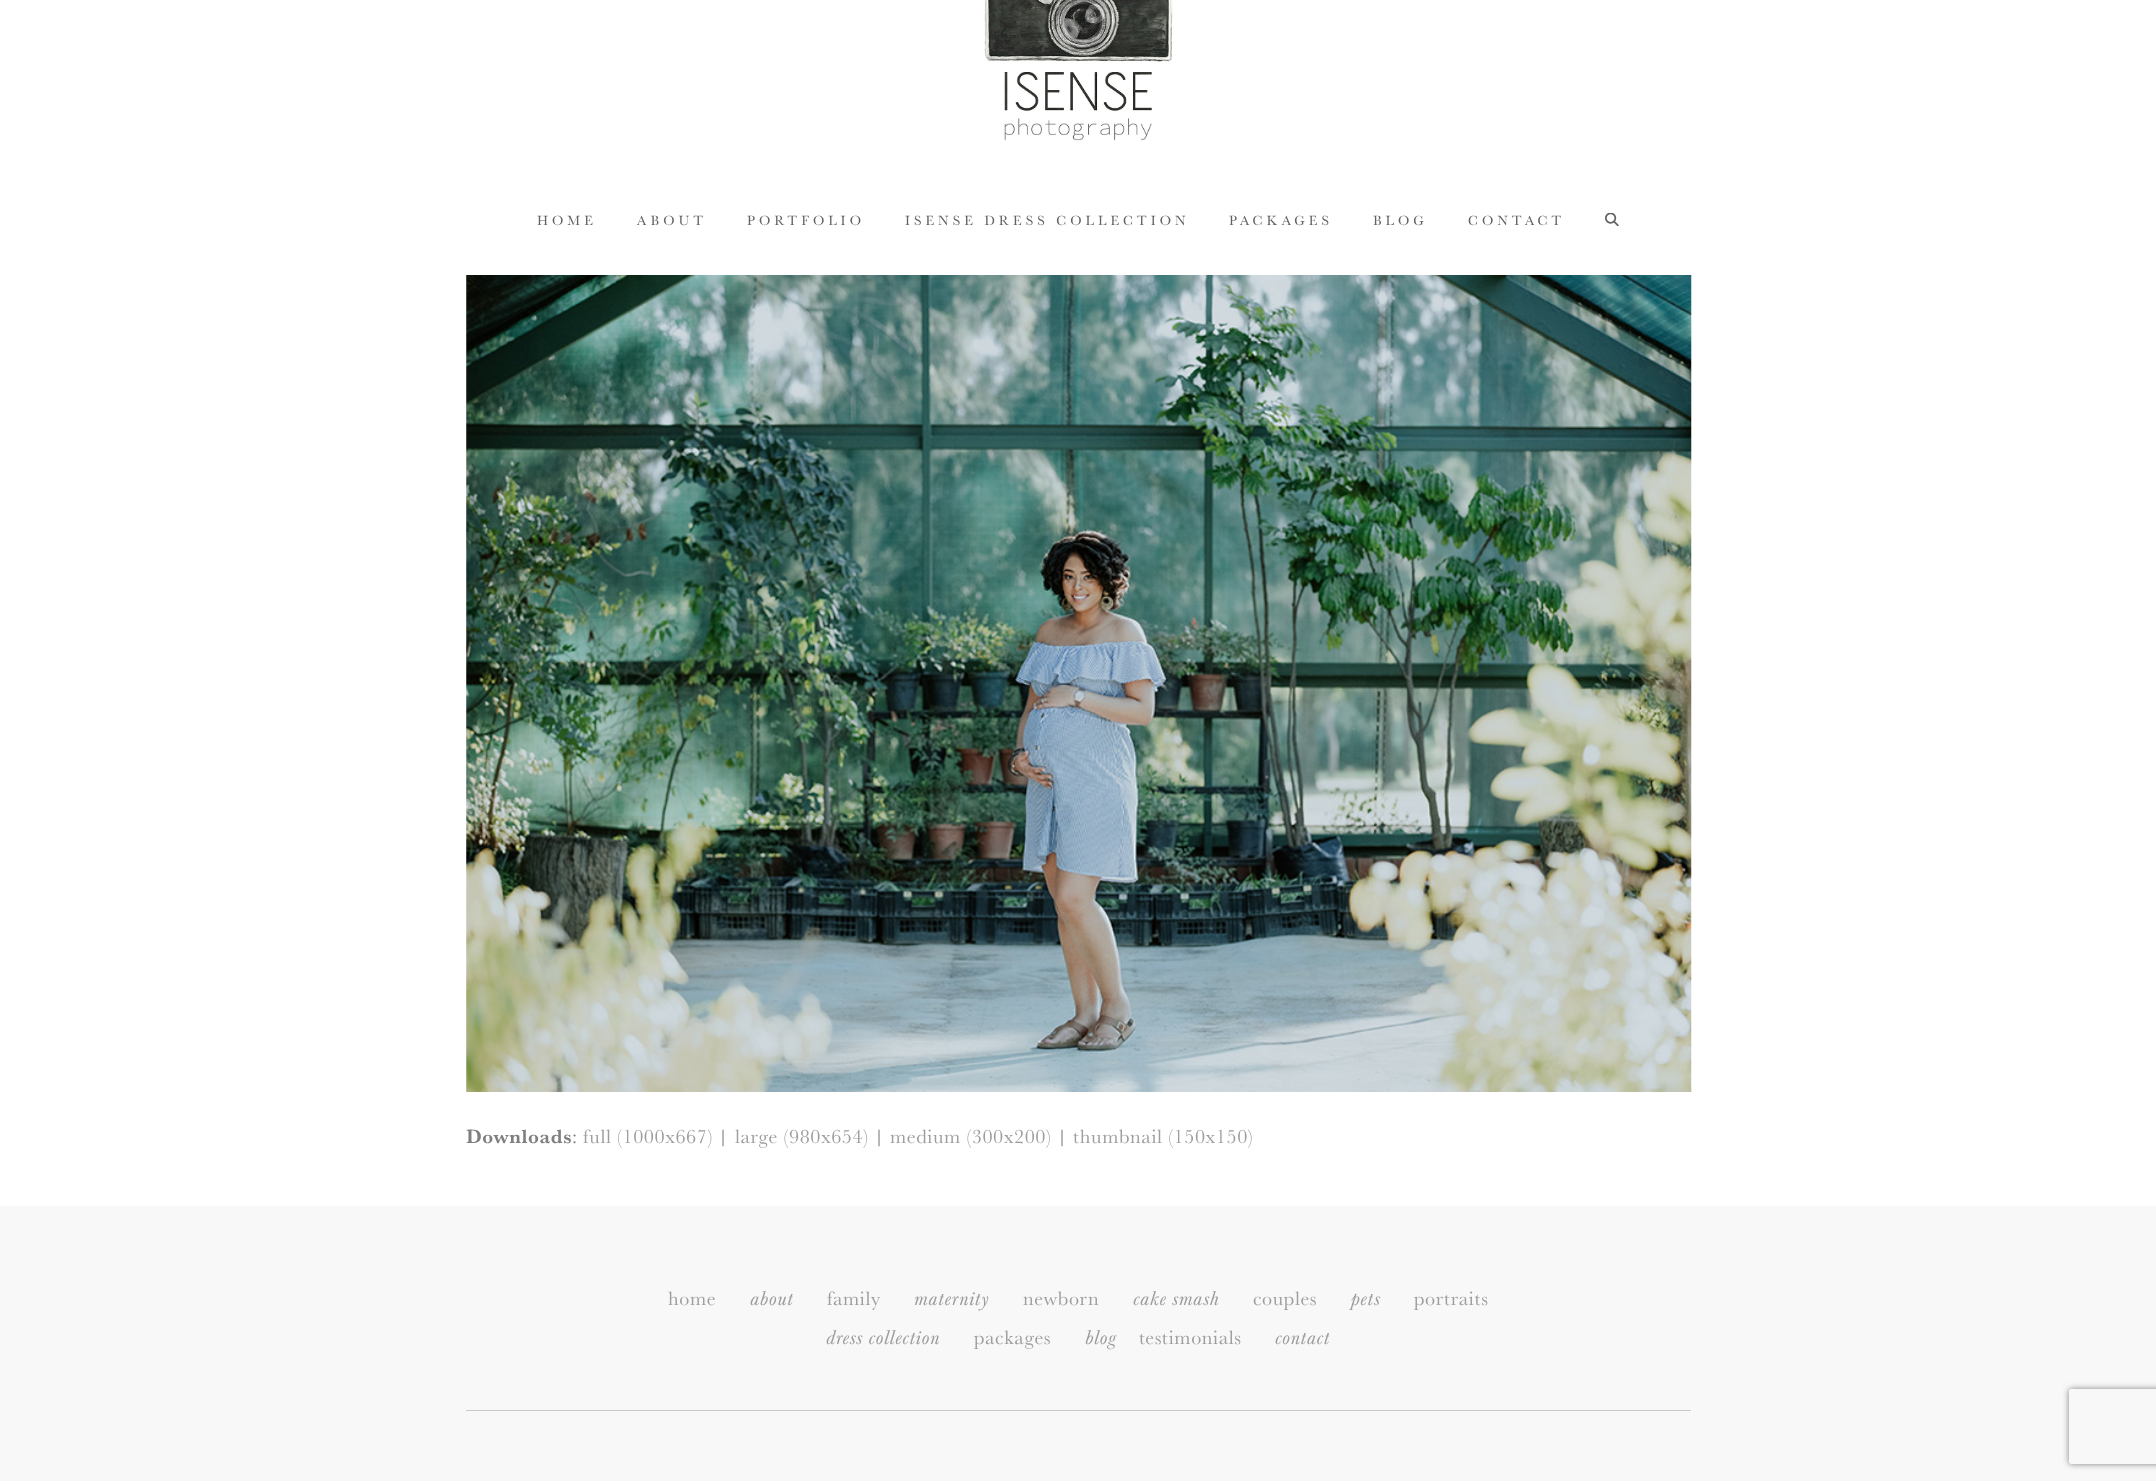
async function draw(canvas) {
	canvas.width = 2156;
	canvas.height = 1481;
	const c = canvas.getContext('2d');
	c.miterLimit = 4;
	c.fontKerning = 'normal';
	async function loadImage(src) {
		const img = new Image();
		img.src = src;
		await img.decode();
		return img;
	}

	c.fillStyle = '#fff';
	c.fillRect(0, 0, 2156, 1481);
	c.drawImage(await loadImage('img1.png'), 984, 0, 189, 141);
	c.letterSpacing = '4px';
	c.font = '13.75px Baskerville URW';
	c.fillStyle = '#616161';
	for (const [text, x, y] of [
		['HOME', 537, 225],
		['ABOUT', 637, 225],
		['PORTFOLIO', 747, 225],
		['ISENSE DRESS COLLECTION', 905, 225],
		['PACKAGES', 1229, 225],
		['BLOG', 1373, 225],
		['CONTACT', 1468, 225],
	]) {
		c.fillText(text, x, y);
	}
	c.drawImage(await loadImage('img2.png'), 1605, 213, 14, 13);
	c.drawImage(await loadImage('img3.png'), 466, 275, 1226, 817);
	c.letterSpacing = '0.6px';
	c.font = 'bold 20px Baskerville URW';
	c.fillStyle = '#7f7f7f';
	c.fillText('Downloads', 466, 1143);
	c.font = '20px Baskerville URW';
	c.fillText(':', 572, 1143);
	c.fillStyle = '#9d9d9d';
	c.fillText('full (1000x667)', 583, 1143);
	c.fillStyle = '#7f7f7f';
	c.fillText('|', 718, 1143);
	c.fillStyle = '#9d9d9d';
	c.fillText('large (980x654)', 735, 1143);
	c.fillStyle = '#7f7f7f';
	c.fillText('|', 874, 1143);
	c.fillStyle = '#9d9d9d';
	c.fillText('medium (300x200)', 890, 1143);
	c.fillStyle = '#7f7f7f';
	c.fillText('|', 1057, 1143);
	c.fillStyle = '#9d9d9d';
	c.fillText('thumbnail (150x150)', 1073, 1143);
	c.fillStyle = '#f8f8f8';
	c.fillRect(0, 1206, 2156, 275);
	c.fillStyle = '#9d9d9d';
	c.fillText('home', 668, 1305);
	c.font = 'italic 20px Baskerville URW';
	c.fillText('about', 750, 1305);
	c.font = '20px Baskerville URW';
	c.fillText('family', 827, 1305);
	c.font = 'italic 20px Baskerville URW';
	c.fillText('maternity', 914, 1305);
	c.font = '20px Baskerville URW';
	c.fillText('newborn', 1023, 1305);
	c.font = 'italic 20px Baskerville URW';
	c.fillText('cake smash', 1133, 1305);
	c.font = '20px Baskerville URW';
	c.fillText('couples', 1253, 1305);
	c.font = 'italic 20px Baskerville URW';
	c.fillText('pets', 1351, 1305);
	c.font = '20px Baskerville URW';
	c.fillText('portraits', 1414, 1305);
	c.font = 'italic 20px Baskerville URW';
	c.fillText('dress collection', 826, 1344);
	c.font = '20px Baskerville URW';
	c.fillText('packages', 974, 1344);
	c.font = 'italic 20px Baskerville URW';
	c.fillText('blog', 1085, 1344);
	c.font = '20px Baskerville URW';
	c.fillText('testimonials', 1139, 1344);
	c.font = 'italic 20px Baskerville URW';
	c.fillText('contact', 1275, 1344);
	c.fillStyle = '#c9c9c9';
	c.fillRect(466, 1410, 1225, 1);
	c.save();
	c.beginPath();
	c.moveTo(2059, 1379);
	c.lineTo(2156, 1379);
	c.lineTo(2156, 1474);
	c.lineTo(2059, 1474);
	c.closePath();
	c.moveTo(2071.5, 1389);
	c.lineTo(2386.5, 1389);
	c.bezierCurveTo(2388, 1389, 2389, 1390, 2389, 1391.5);
	c.lineTo(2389, 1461.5);
	c.bezierCurveTo(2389, 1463, 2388, 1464, 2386.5, 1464);
	c.lineTo(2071.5, 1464);
	c.bezierCurveTo(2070, 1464, 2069, 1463, 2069, 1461.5);
	c.lineTo(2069, 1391.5);
	c.bezierCurveTo(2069, 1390, 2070, 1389, 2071.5, 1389);
	c.closePath();
	c.clip('evenodd');
	c.fillStyle = '#808080';
	c.filter = 'blur(3px)';
	c.beginPath();
	c.roundRect(2069, 1389, 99, 75, 2.5);
	c.fill();
	c.filter = 'none';
	c.restore();
}

draw(document.querySelector('canvas'));
